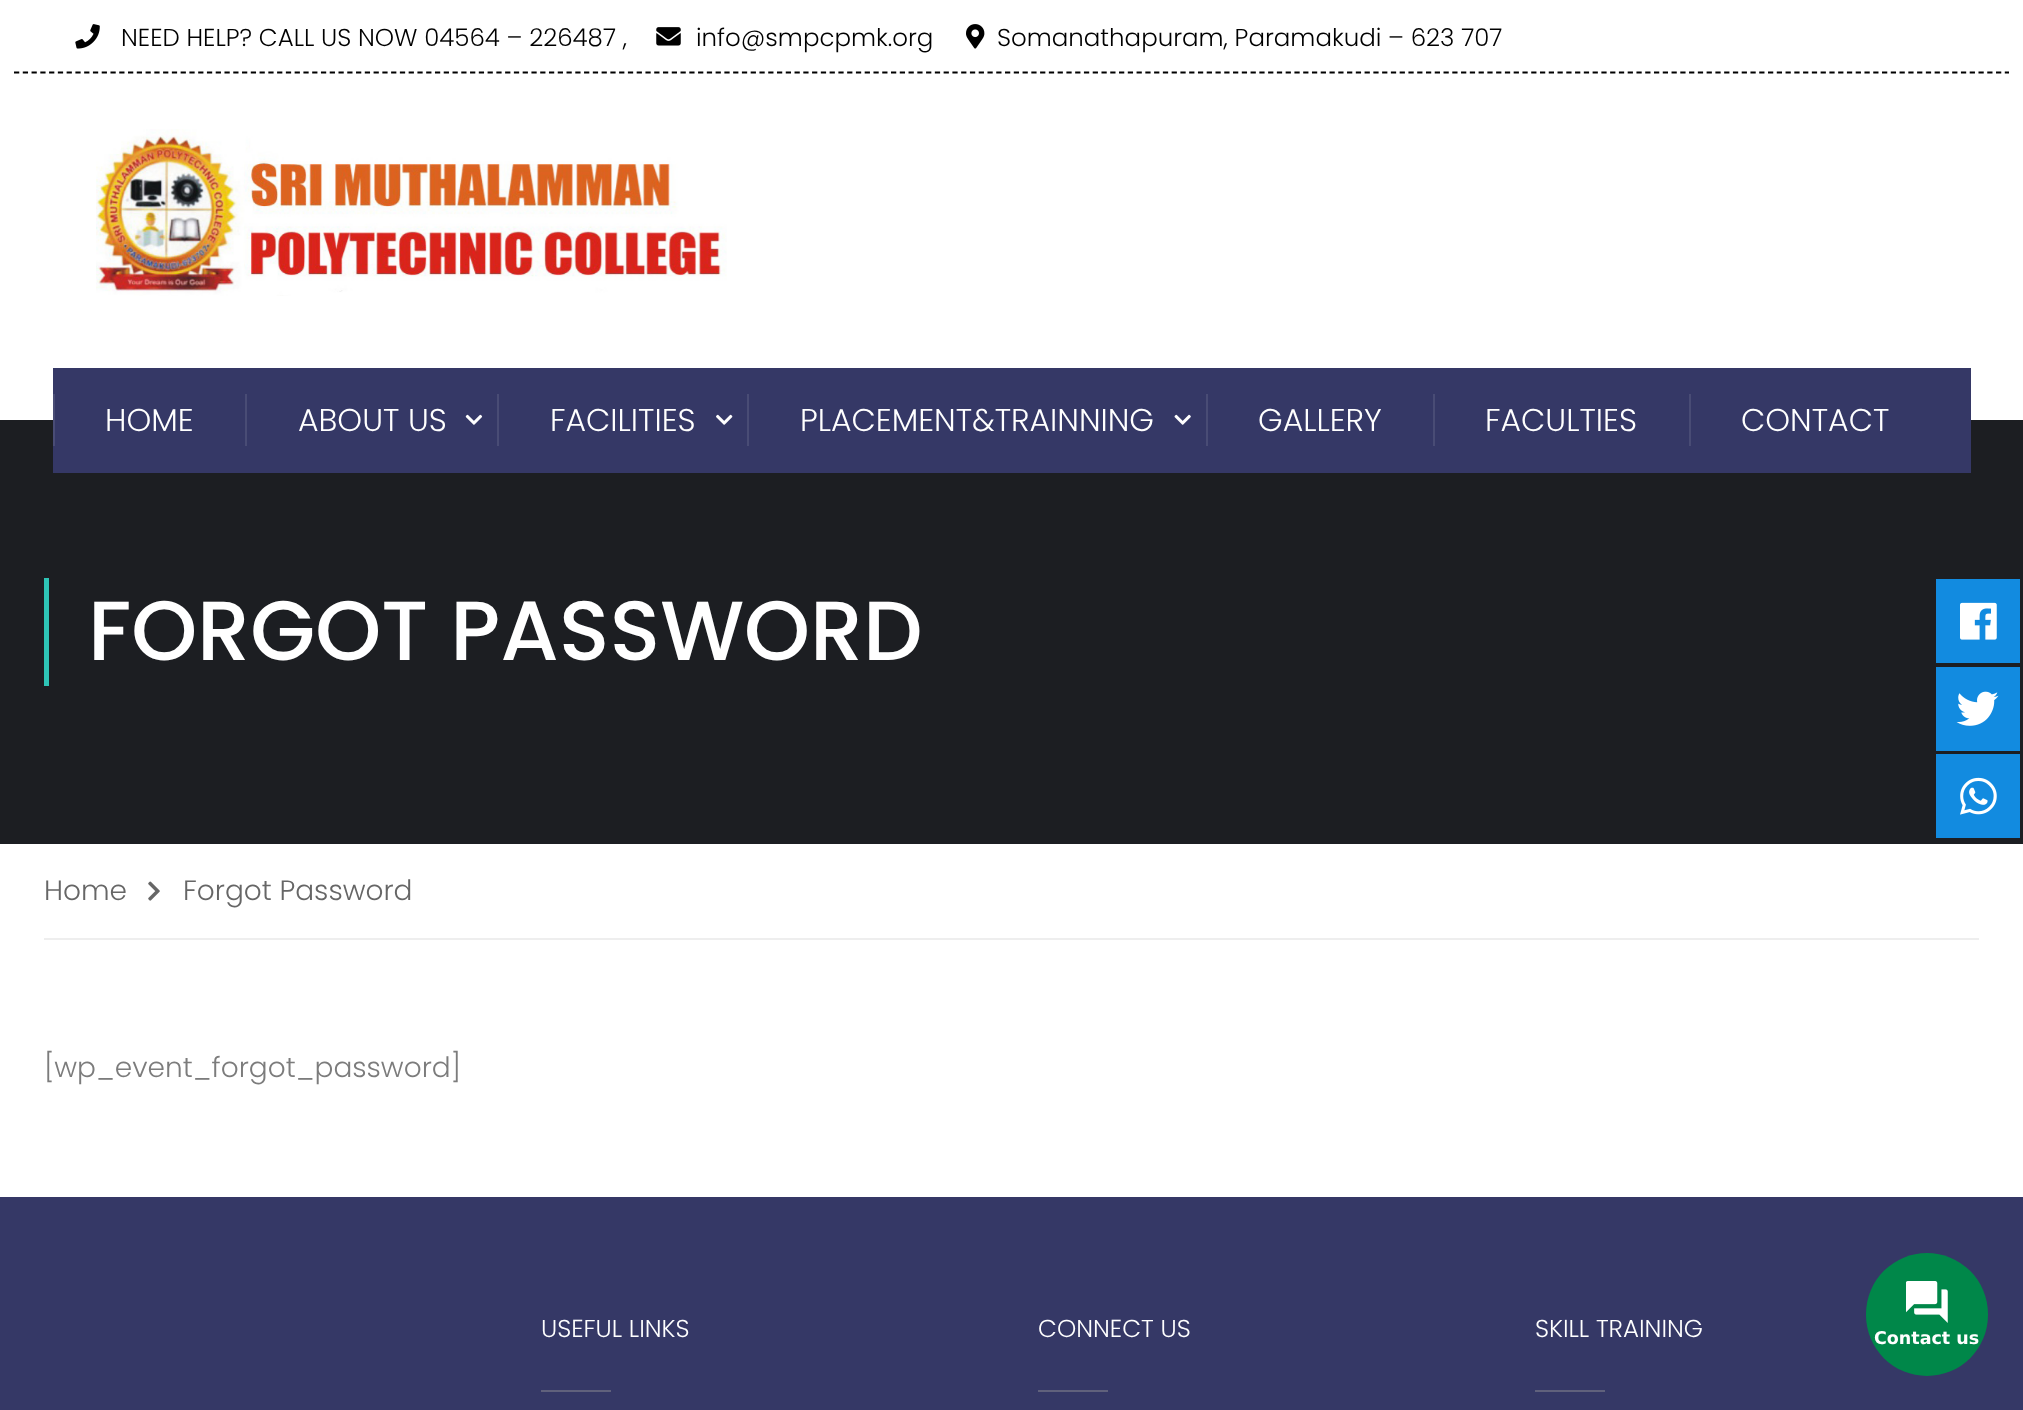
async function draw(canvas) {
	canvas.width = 2023;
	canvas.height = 1410;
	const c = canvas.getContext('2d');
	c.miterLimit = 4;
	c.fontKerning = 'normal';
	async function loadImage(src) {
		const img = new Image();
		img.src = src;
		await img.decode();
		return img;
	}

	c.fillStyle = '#fff';
	c.fillRect(0, 0, 2023, 1410);
	c.drawImage(await loadImage('img1.png'), 75, 24, 25, 25);
	c.font = '300 24.5px Poppins';
	c.fillStyle = '#000';
	c.fillText('NEED HELP? CALL US NOW 04564 – 226487 ,', 121, 46);
	c.drawImage(await loadImage('img2.png'), 656, 27, 25, 19);
	c.fillText('info@smpcpmk.org', 696, 46);
	c.drawImage(await loadImage('img3.png'), 966, 24, 19, 25);
	c.fillText('Somanathapuram, Paramakudi – 623 707', 997, 46);
	c.beginPath();
	c.moveTo(14, 72.5);
	c.lineTo(2009, 72.5);
	c.strokeStyle = '#000';
	c.lineWidth = 1.8;
	c.setLineDash([5.25, 3.52]);
	c.stroke();
	c.drawImage(await loadImage('img4.png'), 96, 129, 631, 167);
	for (const [x, y, w, h, color] of [
		[0, 420, 2023, 424, '#1c1e22'],
		[53, 368, 1918, 105, '#353866'],
		[53, 394, 2, 52, '#494c75'],
	]) {
		c.fillStyle = color;
		c.fillRect(x, y, w, h);
	}
	c.font = '300 31.5px Poppins';
	c.fillStyle = '#fff';
	c.fillText('HOME', 105, 431);
	c.fillStyle = '#494c75';
	c.fillRect(245, 394, 2, 52);
	c.fillStyle = '#fff';
	c.fillText('ABOUT US', 298, 431);
	c.drawImage(await loadImage('img5.png'), 465, 414, 18, 11);
	c.fillStyle = '#494c75';
	c.fillRect(497, 394, 2, 52);
	c.fillStyle = '#fff';
	c.fillText('FACILITIES', 550, 431);
	c.drawImage(await loadImage('img6.png'), 716, 414, 17, 11);
	c.fillStyle = '#494c75';
	c.fillRect(747, 394, 2, 52);
	c.fillStyle = '#fff';
	c.fillText('PLACEMENT&TRAINNING', 800, 431);
	c.drawImage(await loadImage('img7.png'), 1174, 414, 17, 11);
	c.fillStyle = '#494c75';
	c.fillRect(1206, 394, 2, 52);
	c.fillStyle = '#fff';
	c.fillText('GALLERY', 1258, 431);
	c.fillStyle = '#494c75';
	c.fillRect(1433, 394, 2, 52);
	c.fillStyle = '#fff';
	c.fillText('FACULTIES', 1485, 431);
	c.fillStyle = '#494c75';
	c.fillRect(1689, 394, 2, 52);
	c.fillStyle = '#fff';
	c.fillText('CONTACT', 1741, 431);
	c.fillStyle = '#2ec4b6';
	c.fillRect(44, 578, 5, 108);
	c.font = '500 84px Poppins';
	c.fillStyle = '#fff';
	c.fillText('FORGOT PASSWORD', 88, 660);
	c.fillStyle = '#eee';
	c.fillRect(44, 938, 1935, 2);
	c.font = '300 28px Poppins';
	c.fillStyle = '#666';
	c.fillText('Home', 44, 900);
	c.drawImage(await loadImage('img8.png'), 148, 881, 12, 20);
	c.fillText('Forgot Password', 183, 900);
	c.fillStyle = '#7c7c7c';
	c.fillText('[wp_event_forgot_password]', 44, 1077);
	c.fillStyle = '#353866';
	c.fillRect(0, 1197, 2023, 213);
	c.font = '300 24.5px Poppins';
	c.fillStyle = '#fff';
	c.fillText('USEFUL LINKS', 541, 1337);
	c.fillStyle = '#60617c';
	c.fillRect(541, 1390, 70, 2);
	c.fillStyle = '#fff';
	c.fillText('CONNECT US', 1038, 1337);
	c.fillStyle = '#60617c';
	c.fillRect(1038, 1390, 70, 2);
	c.fillStyle = '#fff';
	c.fillText('SKILL TRAINING', 1535, 1337);
	c.fillStyle = '#60617c';
	c.fillRect(1535, 1390, 70, 2);
	c.fillStyle = '#128be0';
	c.fillRect(1936, 579, 84, 84);
	c.drawImage(await loadImage('img9.png'), 1960, 602, 37, 38);
	c.fillRect(1936, 667, 84, 84);
	c.drawImage(await loadImage('img10.png'), 1956, 691, 43, 35);
	c.fillRect(1936, 754, 84, 84);
	c.drawImage(await loadImage('img11.png'), 1960, 777, 37, 38);
	c.fillStyle = '#008749';
	c.beginPath();
	c.roundRect(1866, 1253, 122, 123, 61);
	c.fill();
	c.drawImage(await loadImage('img12.png'), 1906, 1281, 42, 42);
	c.font = 'bold 17.5px DejaVu Sans';
	c.fillStyle = '#fff';
	c.fillText('Contact us', 1874, 1344);
}

draw(document.querySelector('canvas'));
